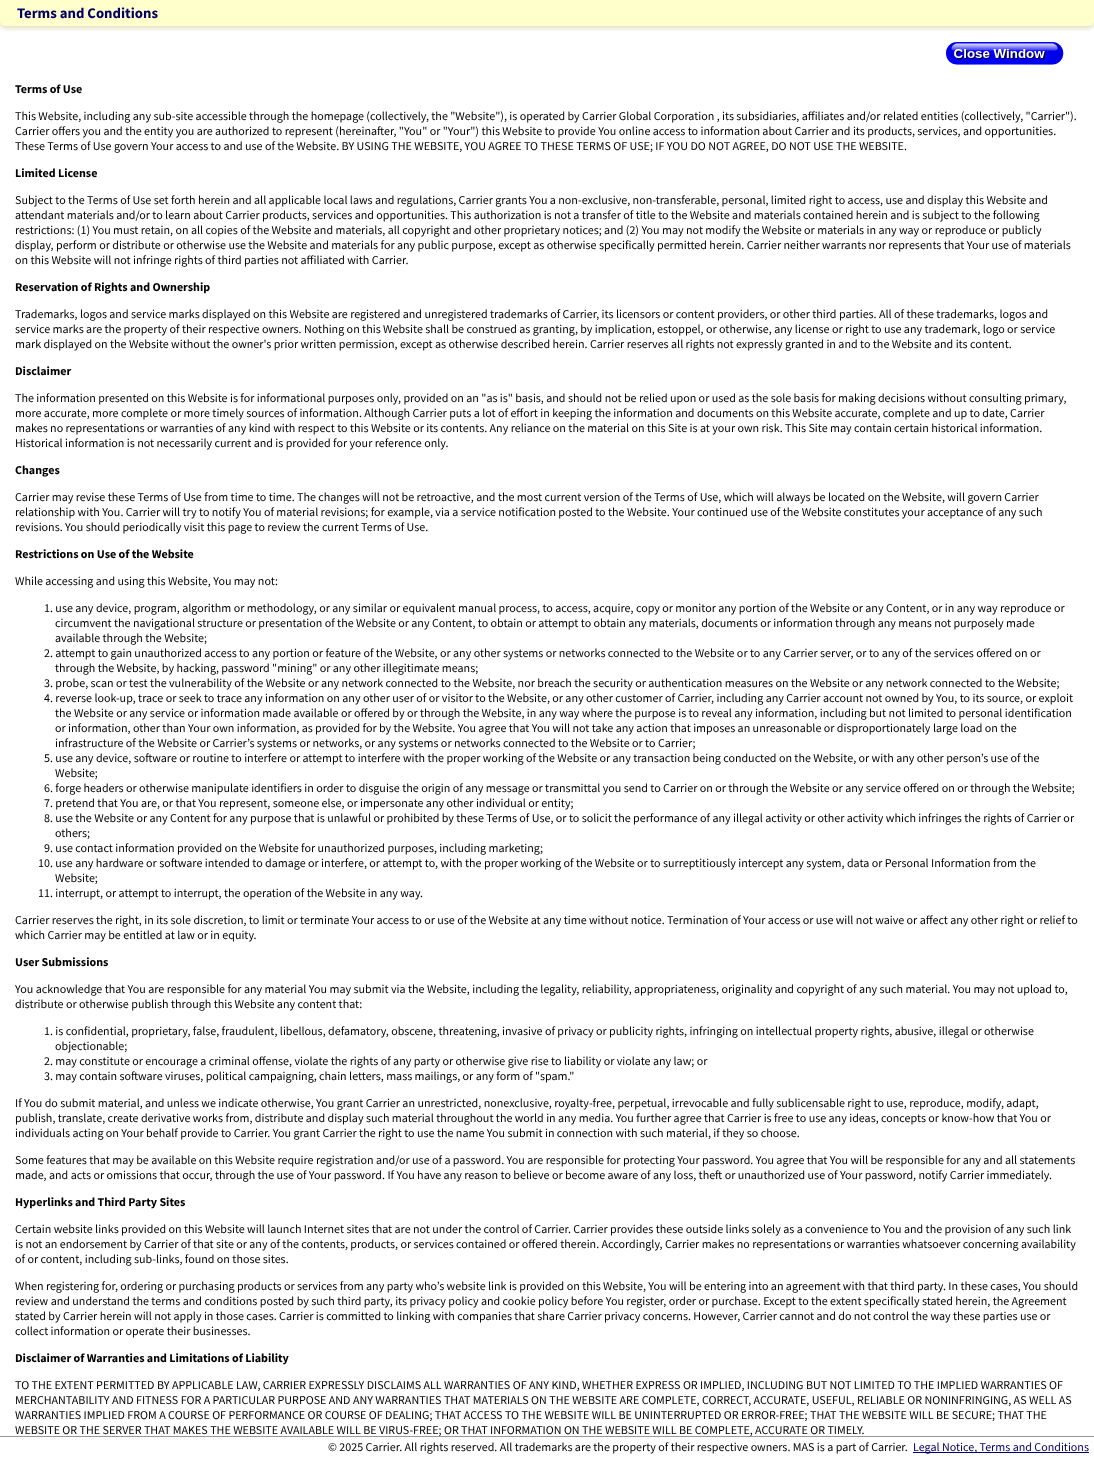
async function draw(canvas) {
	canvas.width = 1094;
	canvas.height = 1457;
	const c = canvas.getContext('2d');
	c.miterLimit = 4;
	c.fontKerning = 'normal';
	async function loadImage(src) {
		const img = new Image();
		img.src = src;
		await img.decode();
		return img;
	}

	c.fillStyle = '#fff';
	c.fillRect(0, 0, 1094, 1457);
	c.fillStyle = '#ddb';
	c.filter = 'blur(2.5px)';
	c.beginPath();
	c.roundRect(0, 2, 1094, 26, 5);
	c.fill();
	c.filter = 'none';
	c.fillStyle = '#ffc';
	c.beginPath();
	c.roundRect(0, 0, 1094, 26, [0, 0, 5, 5]);
	c.fill();
	c.font = 'bold 14.75px Source Sans Pro';
	c.fillStyle = '#006';
	c.fillText('Terms and Conditions', 17, 18);
	c.drawImage(await loadImage('img1.png'), 945, 42, 119, 23);
	c.font = 'bold 12px Source Sans Pro';
	c.fillStyle = '#000';
	c.fillText('Terms of Use', 15, 93);
	c.font = '12px Source Sans Pro';
	for (const [text, x, y] of [
		['This Website, including any sub-site accessible through the homepage (collectively, the "Website"), is operated by Carrier Global Corporation , its subsidiaries, affiliates and/or related entities (collectively, "Carrier").', 15, 120],
		['Carrier offers you and the entity you are authorized to represent (hereinafter, "You" or "Your") this Website to provide You online access to information about Carrier and its products, services, and opportunities.', 15, 135],
		['These Terms of Use govern Your access to and use of the Website. BY USING THE WEBSITE, YOU AGREE TO THESE TERMS OF USE; IF YOU DO NOT AGREE, DO NOT USE THE WEBSITE.', 15, 150],
	]) {
		c.fillText(text, x, y);
	}
	c.font = 'bold 12px Source Sans Pro';
	c.fillText('Limited License', 15, 177);
	c.font = '12px Source Sans Pro';
	for (const [text, x, y] of [
		['Subject to the Terms of Use set forth herein and all applicable local laws and regulations, Carrier grants You a non-exclusive, non-transferable, personal, limited right to access, use and display this Website and', 15, 204],
		['attendant materials and/or to learn about Carrier products, services and opportunities. This authorization is not a transfer of title to the Website and materials contained herein and is subject to the following', 15, 219],
		['restrictions: (1) You must retain, on all copies of the Website and materials, all copyright and other proprietary notices; and (2) You may not modify the Website or materials in any way or reproduce or publicly', 15, 234],
		['display, perform or distribute or otherwise use the Website and materials for any public purpose, except as otherwise specifically permitted herein. Carrier neither warrants nor represents that Your use of materials', 15, 249],
		['on this Website will not infringe rights of third parties not affiliated with Carrier.', 15, 264],
	]) {
		c.fillText(text, x, y);
	}
	c.font = 'bold 12px Source Sans Pro';
	c.fillText('Reservation of Rights and Ownership', 15, 291);
	c.font = '12px Source Sans Pro';
	for (const [text, x, y] of [
		['Trademarks, logos and service marks displayed on this Website are registered and unregistered trademarks of Carrier, its licensors or content providers, or other third parties. All of these trademarks, logos and', 15, 318],
		['service marks are the property of their respective owners. Nothing on this Website shall be construed as granting, by implication, estoppel, or otherwise, any license or right to use any trademark, logo or service', 15, 333],
		['mark displayed on the Website without the owner\'s prior written permission, except as otherwise described herein. Carrier reserves all rights not expressly granted in and to the Website and its content.', 15, 348],
	]) {
		c.fillText(text, x, y);
	}
	c.font = 'bold 12px Source Sans Pro';
	c.fillText('Disclaimer', 15, 375);
	c.font = '12px Source Sans Pro';
	for (const [text, x, y] of [
		['The information presented on this Website is for informational purposes only, provided on an "as is" basis, and should not be relied upon or used as the sole basis for making decisions without consulting primary,', 15, 402],
		['more accurate, more complete or more timely sources of information. Although Carrier puts a lot of effort in keeping the information and documents on this Website accurate, complete and up to date, Carrier', 15, 417],
		['makes no representations or warranties of any kind with respect to this Website or its contents. Any reliance on the material on this Site is at your own risk. This Site may contain certain historical information.', 15, 432],
		['Historical information is not necessarily current and is provided for your reference only.', 15, 447],
	]) {
		c.fillText(text, x, y);
	}
	c.font = 'bold 12px Source Sans Pro';
	c.fillText('Changes', 15, 474);
	c.font = '12px Source Sans Pro';
	for (const [text, x, y] of [
		['Carrier may revise these Terms of Use from time to time. The changes will not be retroactive, and the most current version of the Terms of Use, which will always be located on the Website, will govern Carrier', 15, 501],
		['relationship with You. Carrier will try to notify You of material revisions; for example, via a service notification posted to the Website. Your continued use of the Website constitutes your acceptance of any such', 15, 516],
		['revisions. You should periodically visit this page to review the current Terms of Use.', 15, 531],
	]) {
		c.fillText(text, x, y);
	}
	c.font = 'bold 12px Source Sans Pro';
	c.fillText('Restrictions on Use of the Website', 15, 558);
	c.font = '12px Source Sans Pro';
	for (const [text, x, y] of [
		['While accessing and using this Website, You may not:', 15, 585],
		['1. use any device, program, algorithm or methodology, or any similar or equivalent manual process, to access, acquire, copy or monitor any portion of the Website or any Content, or in any way reproduce or', 44, 612],
		['circumvent the navigational structure or presentation of the Website or any Content, to obtain or attempt to obtain any materials, documents or information through any means not purposely made', 55, 627],
		['available through the Website;', 55, 642],
		['2. attempt to gain unauthorized access to any portion or feature of the Website, or any other systems or networks connected to the Website or to any Carrier server, or to any of the services offered on or', 44, 657],
		['through the Website, by hacking, password "mining" or any other illegitimate means;', 55, 672],
		['3. probe, scan or test the vulnerability of the Website or any network connected to the Website, nor breach the security or authentication measures on the Website or any network connected to the Website;', 44, 687],
		['4. reverse look-up, trace or seek to trace any information on any other user of or visitor to the Website, or any other customer of Carrier, including any Carrier account not owned by You, to its source, or exploit', 44, 702],
		['the Website or any service or information made available or offered by or through the Website, in any way where the purpose is to reveal any information, including but not limited to personal identification', 55, 717],
		['or information, other than Your own information, as provided for by the Website. You agree that You will not take any action that imposes an unreasonable or disproportionately large load on the', 55, 732],
		['infrastructure of the Website or Carrier’s systems or networks, or any systems or networks connected to the Website or to Carrier;', 55, 747],
		['5. use any device, software or routine to interfere or attempt to interfere with the proper working of the Website or any transaction being conducted on the Website, or with any other person’s use of the', 44, 762],
		['Website;', 55, 777],
		['6. forge headers or otherwise manipulate identifiers in order to disguise the origin of any message or transmittal you send to Carrier on or through the Website or any service offered on or through the Website;', 44, 792],
		['7. pretend that You are, or that You represent, someone else, or impersonate any other individual or entity;', 44, 807],
		['8. use the Website or any Content for any purpose that is unlawful or prohibited by these Terms of Use, or to solicit the performance of any illegal activity or other activity which infringes the rights of Carrier or', 44, 822],
		['others;', 55, 837],
		['9. use contact information provided on the Website for unauthorized purposes, including marketing;', 44, 852],
		['10. use any hardware or software intended to damage or interfere, or attempt to, with the proper working of the Website or to surreptitiously intercept any system, data or Personal Information from the', 38, 867],
		['Website;', 55, 882],
		['11. interrupt, or attempt to interrupt, the operation of the Website in any way.', 38, 897],
		['Carrier reserves the right, in its sole discretion, to limit or terminate Your access to or use of the Website at any time without notice. Termination of Your access or use will not waive or affect any other right or relief to', 15, 924],
		['which Carrier may be entitled at law or in equity.', 15, 939],
	]) {
		c.fillText(text, x, y);
	}
	c.font = 'bold 12px Source Sans Pro';
	c.fillText('User Submissions', 15, 966);
	c.font = '12px Source Sans Pro';
	for (const [text, x, y] of [
		['You acknowledge that You are responsible for any material You may submit via the Website, including the legality, reliability, appropriateness, originality and copyright of any such material. You may not upload to,', 15, 993],
		['distribute or otherwise publish through this Website any content that:', 15, 1008],
		['1. is confidential, proprietary, false, fraudulent, libellous, defamatory, obscene, threatening, invasive of privacy or publicity rights, infringing on intellectual property rights, abusive, illegal or otherwise', 44, 1035],
		['objectionable;', 55, 1050],
		['2. may constitute or encourage a criminal offense, violate the rights of any party or otherwise give rise to liability or violate any law; or', 44, 1065],
		['3. may contain software viruses, political campaigning, chain letters, mass mailings, or any form of "spam."', 44, 1080],
		['If You do submit material, and unless we indicate otherwise, You grant Carrier an unrestricted, nonexclusive, royalty-free, perpetual, irrevocable and fully sublicensable right to use, reproduce, modify, adapt,', 15, 1107],
		['publish, translate, create derivative works from, distribute and display such material throughout the world in any media. You further agree that Carrier is free to use any ideas, concepts or know-how that You or', 15, 1122],
		['individuals acting on Your behalf provide to Carrier. You grant Carrier the right to use the name You submit in connection with such material, if they so choose.', 15, 1137],
		['Some features that may be available on this Website require registration and/or use of a password. You are responsible for protecting Your password. You agree that You will be responsible for any and all statements', 15, 1164],
		['made, and acts or omissions that occur, through the use of Your password. If You have any reason to believe or become aware of any loss, theft or unauthorized use of Your password, notify Carrier immediately.', 15, 1179],
	]) {
		c.fillText(text, x, y);
	}
	c.font = 'bold 12px Source Sans Pro';
	c.fillText('Hyperlinks and Third Party Sites', 15, 1206);
	c.font = '12px Source Sans Pro';
	for (const [text, x, y] of [
		['Certain website links provided on this Website will launch Internet sites that are not under the control of Carrier. Carrier provides these outside links solely as a convenience to You and the provision of any such link', 15, 1233],
		['is not an endorsement by Carrier of that site or any of the contents, products, or services contained or offered therein. Accordingly, Carrier makes no representations or warranties whatsoever concerning availability', 15, 1248],
		['of or content, including sub-links, found on those sites.', 15, 1263],
		['When registering for, ordering or purchasing products or services from any party who’s website link is provided on this Website, You will be entering into an agreement with that third party. In these cases, You should', 15, 1290],
		['review and understand the terms and conditions posted by such third party, its privacy policy and cookie policy before You register, order or purchase. Except to the extent specifically stated herein, the Agreement', 15, 1305],
		['stated by Carrier herein will not apply in those cases. Carrier is committed to linking with companies that share Carrier privacy concerns. However, Carrier cannot and do not control the way these parties use or', 15, 1320],
		['collect information or operate their businesses.', 15, 1335],
	]) {
		c.fillText(text, x, y);
	}
	c.font = 'bold 12px Source Sans Pro';
	c.fillText('Disclaimer of Warranties and Limitations of Liability', 15, 1362);
	c.font = '12px Source Sans Pro';
	for (const [text, x, y] of [
		['TO THE EXTENT PERMITTED BY APPLICABLE LAW, CARRIER EXPRESSLY DISCLAIMS ALL WARRANTIES OF ANY KIND, WHETHER EXPRESS OR IMPLIED, INCLUDING BUT NOT LIMITED TO THE IMPLIED WARRANTIES OF', 15, 1389],
		['MERCHANTABILITY AND FITNESS FOR A PARTICULAR PURPOSE AND ANY WARRANTIES THAT MATERIALS ON THE WEBSITE ARE COMPLETE, CORRECT, ACCURATE, USEFUL, RELIABLE OR NONINFRINGING, AS WELL AS', 15, 1404],
		['WARRANTIES IMPLIED FROM A COURSE OF PERFORMANCE OR COURSE OF DEALING; THAT ACCESS TO THE WEBSITE WILL BE UNINTERRUPTED OR ERROR-FREE; THAT THE WEBSITE WILL BE SECURE; THAT THE', 15, 1419],
		['WEBSITE OR THE SERVER THAT MAKES THE WEBSITE AVAILABLE WILL BE VIRUS-FREE; OR THAT INFORMATION ON THE WEBSITE WILL BE COMPLETE, ACCURATE OR TIMELY.', 15, 1434],
	]) {
		c.fillText(text, x, y);
	}
	c.fillStyle = '#999';
	c.fillRect(0, 1436, 1094, 1);
	c.fillStyle = '#000';
	c.fillText('© 2025 Carrier. All rights reserved. All trademarks are the property of their respective owners. MAS is a part of Carrier.', 328, 1451);
	c.fillStyle = '#006';
	c.fillRect(913, 1452, 176, 1);
	c.fillText('Legal Notice, Terms and Conditions', 913, 1451);
}

draw(document.querySelector('canvas'));
